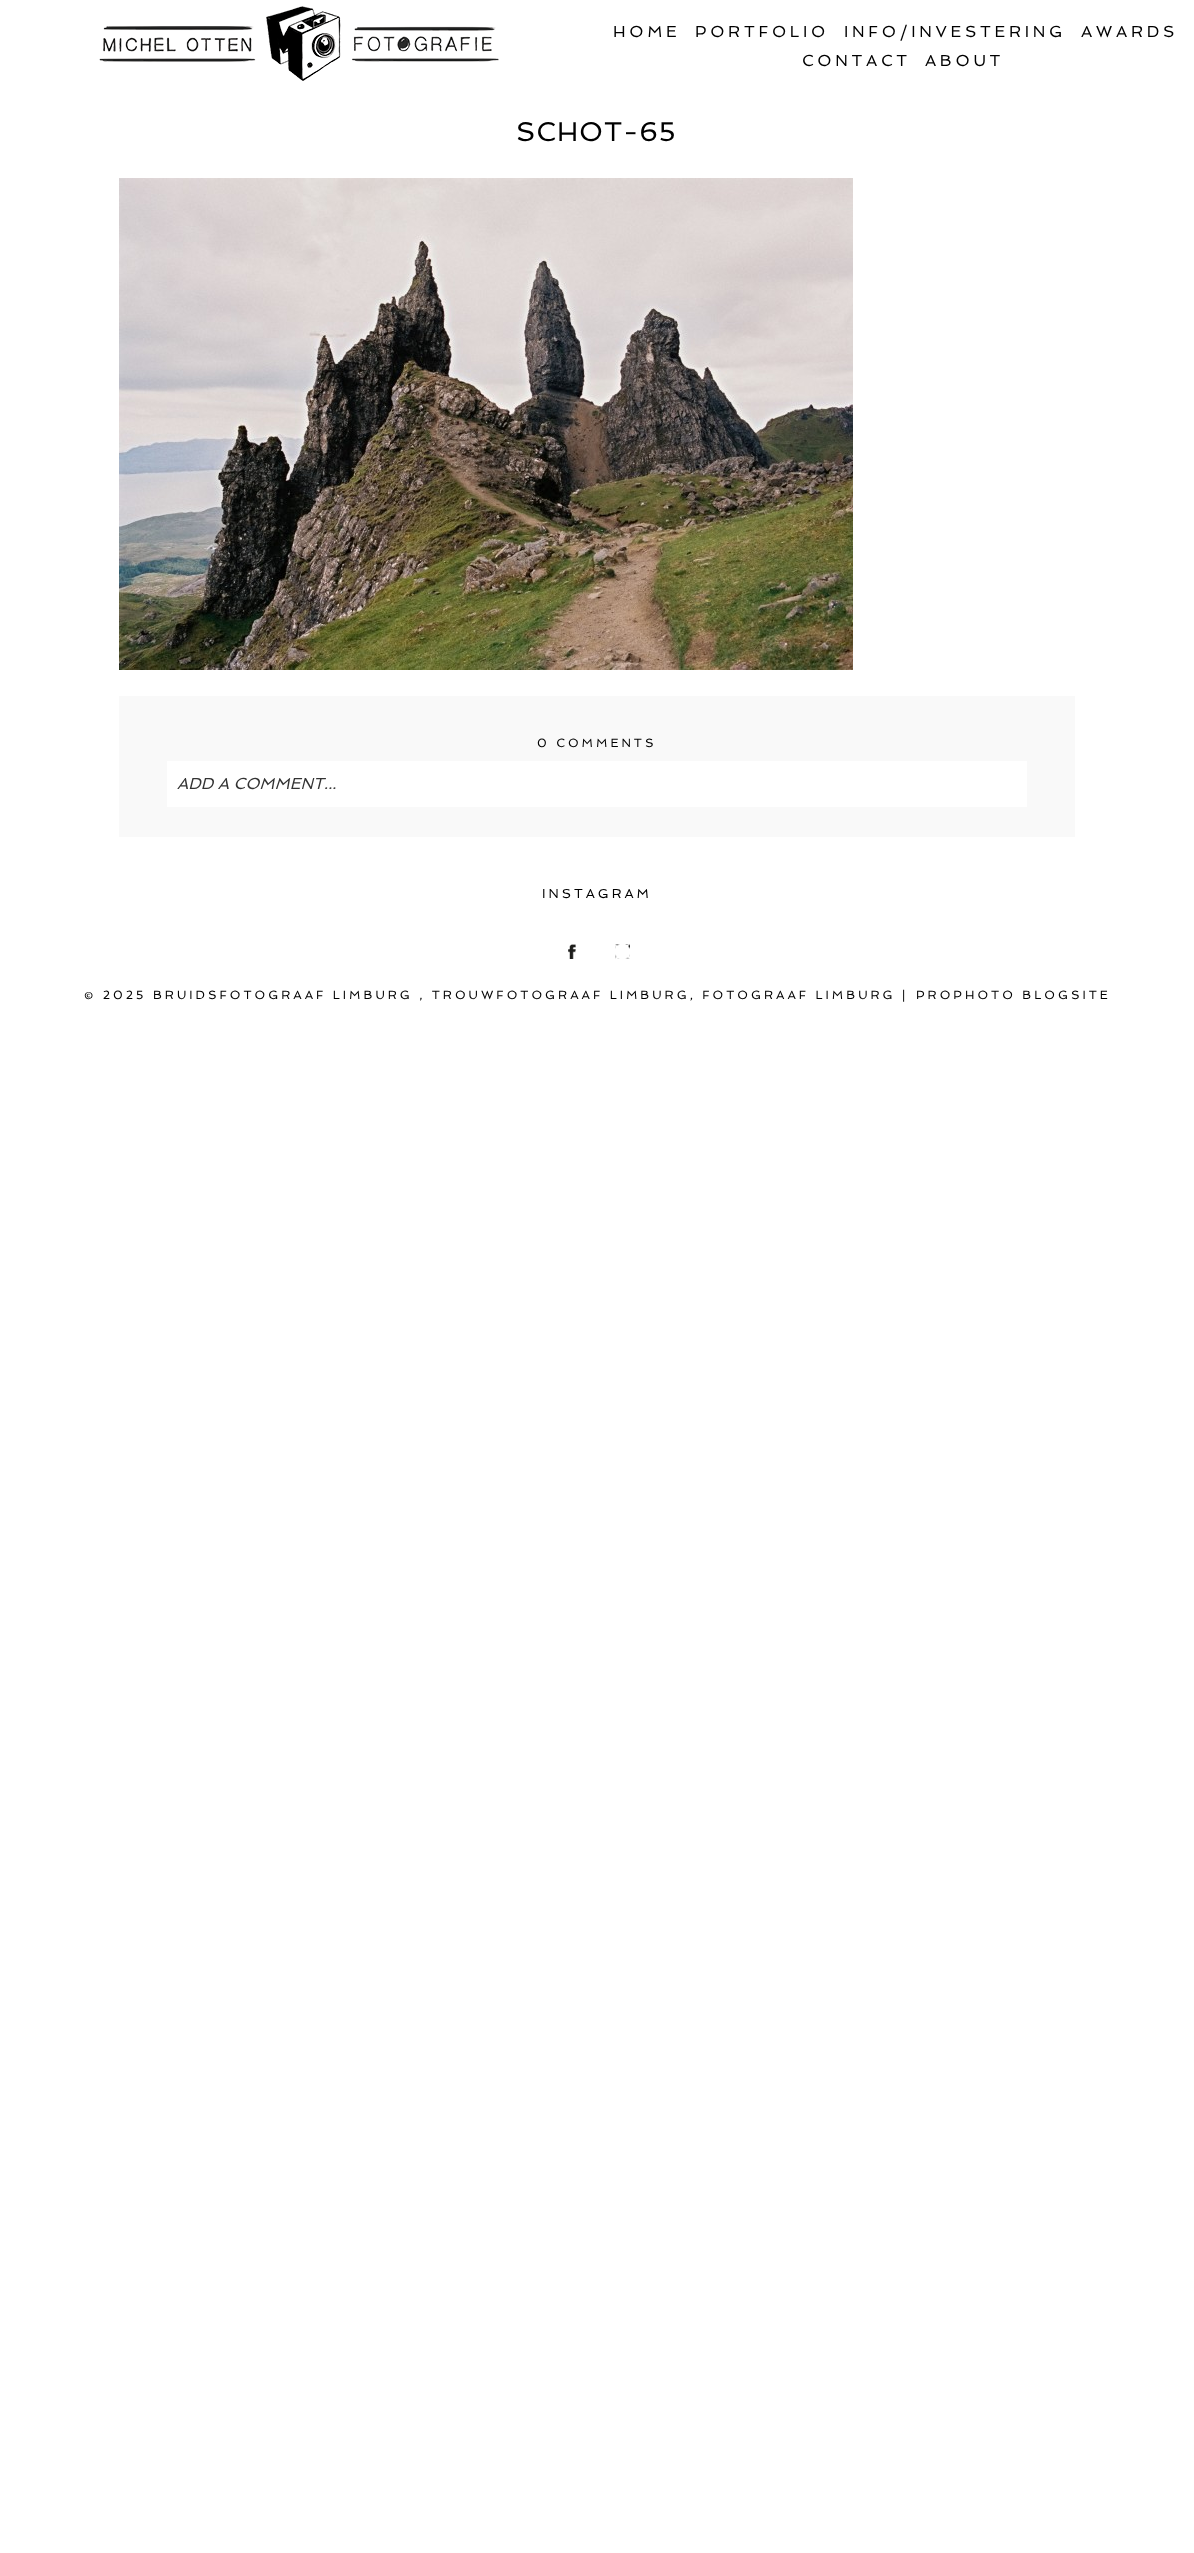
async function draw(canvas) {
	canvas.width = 1194;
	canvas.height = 2553;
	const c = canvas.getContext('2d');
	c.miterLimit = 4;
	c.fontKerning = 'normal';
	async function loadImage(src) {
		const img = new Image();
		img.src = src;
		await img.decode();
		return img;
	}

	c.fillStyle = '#fff';
	c.fillRect(0, 0, 1194, 2553);
	c.drawImage(await loadImage('img1.png'), 99, 6, 400, 75);
	c.letterSpacing = '3.7px';
	c.font = '16px Spinnaker';
	c.fillStyle = '#000';
	for (const [text, x, y] of [
		['HOME', 613, 37],
		['PORTFOLIO', 695, 37],
		['INFO/INVESTERING', 844, 37],
		['AWARDS', 1081, 37],
		['CONTACT', 802, 66],
		['ABOUT', 925, 66],
	]) {
		c.fillText(text, x, y);
	}
	c.letterSpacing = '1px';
	c.font = '27px Spinnaker';
	c.fillText('SCHOT-65', 516, 141);
	c.drawImage(await loadImage('img2.png'), 119, 178, 734, 492);
	c.fillStyle = '#f9f9f9';
	c.fillRect(119, 696, 956, 141);
	c.letterSpacing = '3px';
	c.font = '12px Spinnaker';
	c.fillStyle = '#000';
	c.fillText('0 COMMENTS', 537, 747);
	c.fillStyle = '#fff';
	c.fillRect(167, 761, 860, 46);
	c.letterSpacing = '0px';
	c.font = 'italic 16px Spinnaker';
	c.fillStyle = '#333';
	c.fillText('ADD A COMMENT...', 177, 789);
	c.letterSpacing = '3px';
	c.font = '13px Spinnaker';
	c.fillStyle = '#000';
	c.fillText('INSTAGRAM', 542, 898);
	c.drawImage(await loadImage('img3.png'), 568, 944, 8, 15);
	c.drawImage(await loadImage('img4.png'), 615, 944, 15, 15);
	c.font = '12px Spinnaker';
	for (const [text, x, y] of [
		['© 2025 BRUIDSFOTOGRAAF LIMBURG , TROUWFOTOGRAAF LIMBURG, FOTOGRAAF LIMBURG', 84, 999],
		['|', 902, 999],
		['PROPHOTO BLOGSITE', 916, 999],
	]) {
		c.fillText(text, x, y);
	}
}

draw(document.querySelector('canvas'));
